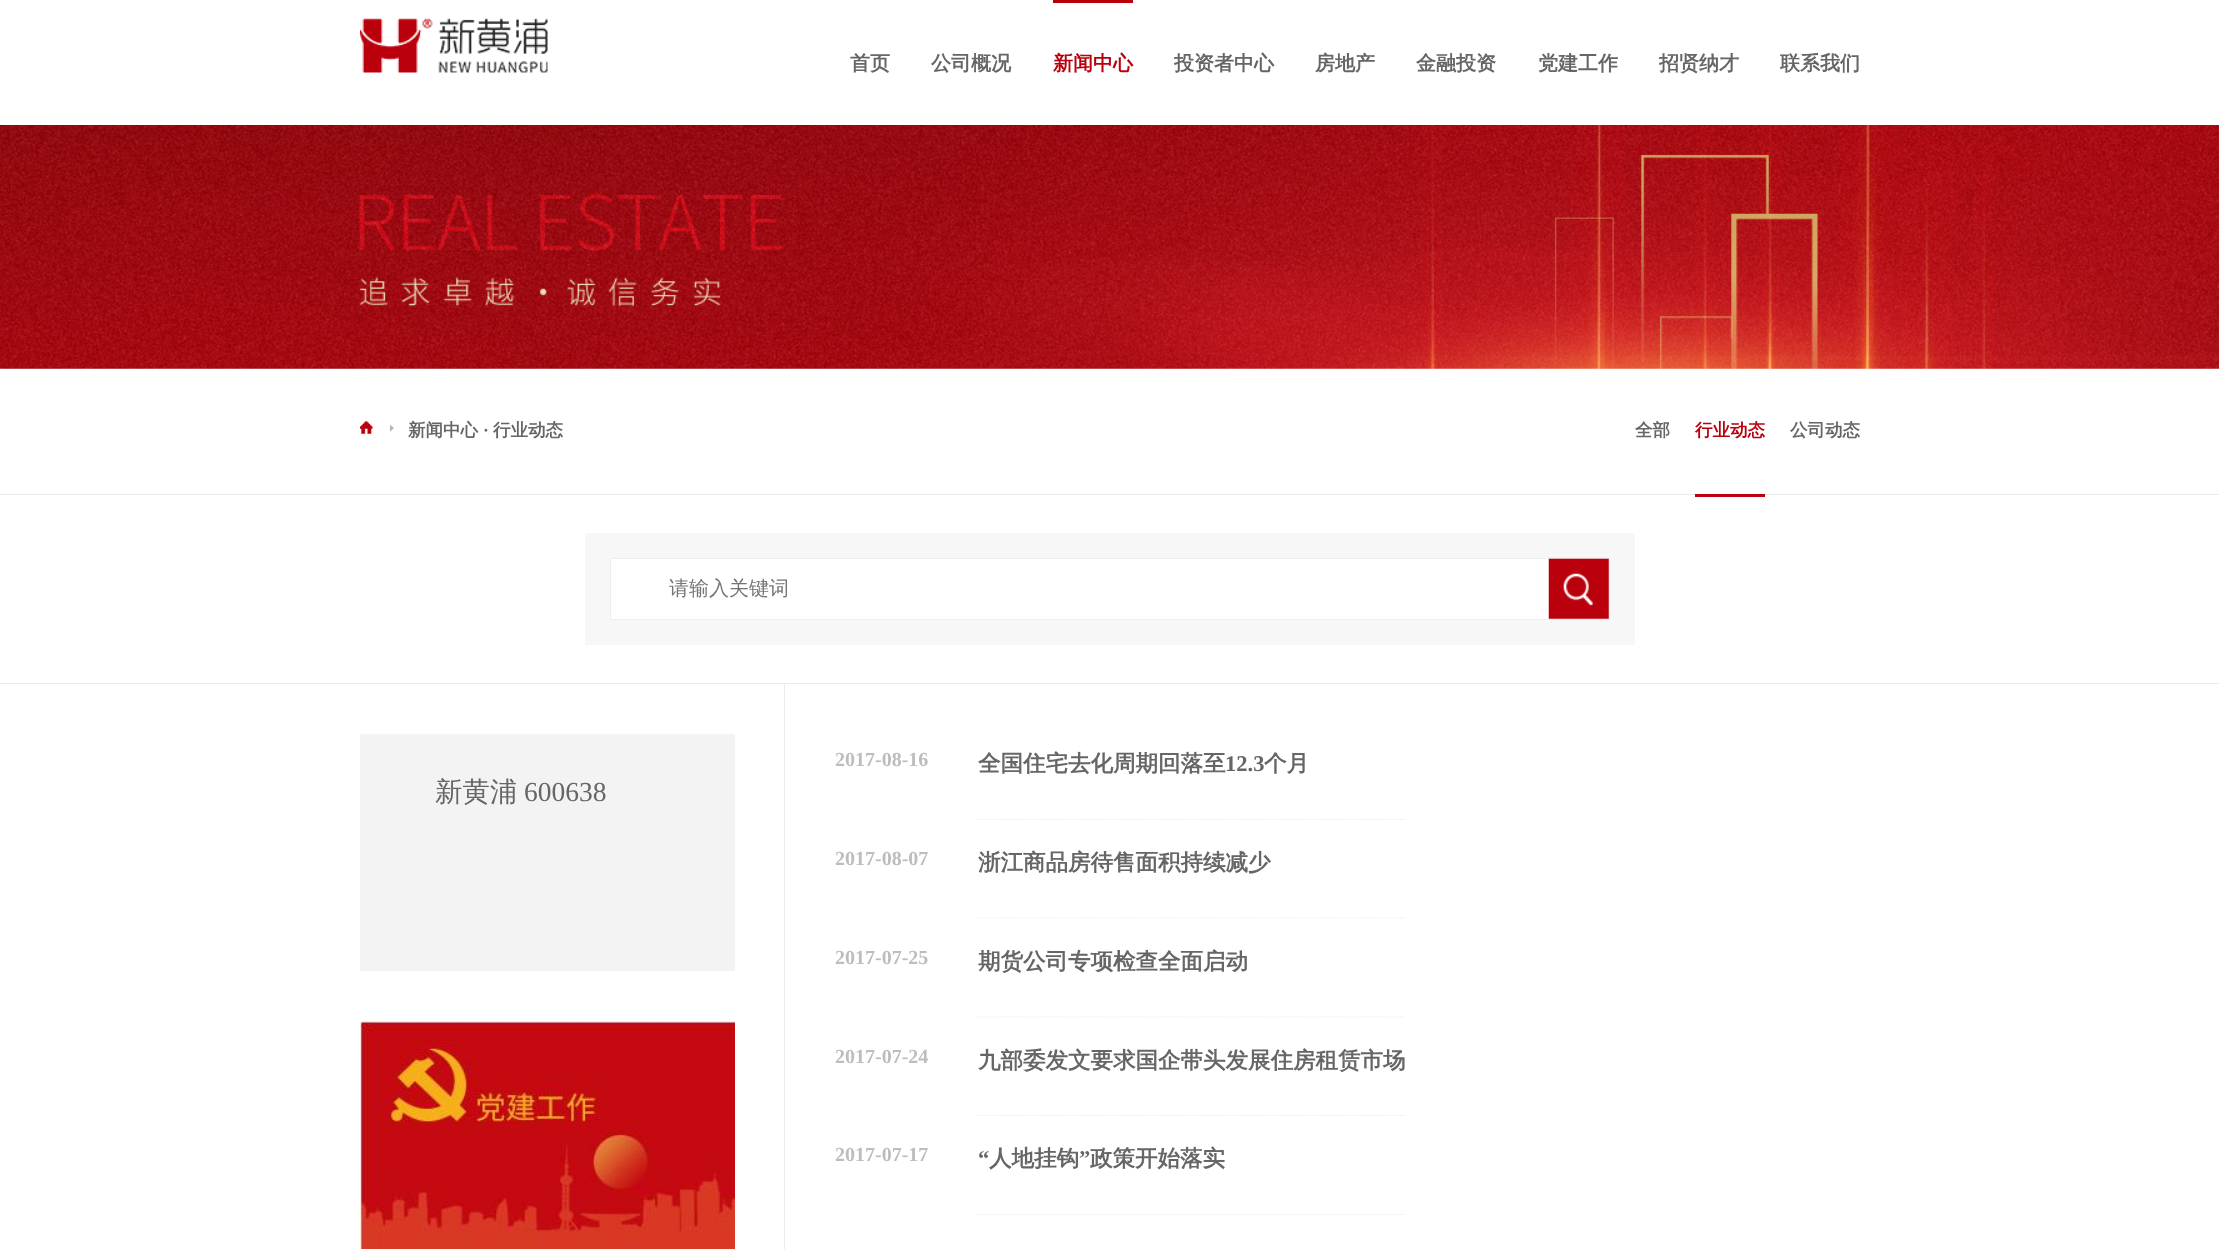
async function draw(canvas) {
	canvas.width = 2219;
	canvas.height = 1249;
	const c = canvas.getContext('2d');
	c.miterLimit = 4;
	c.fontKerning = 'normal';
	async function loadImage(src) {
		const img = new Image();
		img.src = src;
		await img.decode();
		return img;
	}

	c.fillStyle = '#fff';
	c.fillRect(0, 0, 2219, 1249);
	c.drawImage(await loadImage('img1.png'), 360, 18, 188, 55);
	c.font = 'bold 20px WenQuanYi Zen Hei';
	c.fillStyle = '#666';
	c.fillText('首页', 850, 70);
	c.fillText('公司概况', 931, 70);
	c.fillStyle = '#ba000c';
	c.fillRect(1053, 0, 80, 3);
	c.fillText('新闻中心', 1053, 70);
	c.fillStyle = '#666';
	for (const [text, x, y] of [
		['投资者中心', 1174, 70],
		['房地产', 1315, 70],
		['金融投资', 1416, 70],
		['党建工作', 1538, 70],
		['招贤纳才', 1659, 70],
		['联系我们', 1780, 70],
	]) {
		c.fillText(text, x, y);
	}
	c.drawImage(await loadImage('img2.png'), 0, 125, 2219, 244);
	c.fillStyle = '#ebeaea';
	c.fillRect(0, 494, 2219, 1);
	c.drawImage(await loadImage('img3.png'), 360, 421, 34, 13);
	c.font = 'bold 17.5px WenQuanYi Zen Hei';
	c.fillStyle = '#666';
	c.fillText('新闻中心', 408, 436);
	c.font = 'bold 17.5px Liberation Serif';
	c.fillText('·', 483, 436);
	c.font = 'bold 17.5px WenQuanYi Zen Hei';
	c.fillText('行业动态', 493, 436);
	c.fillText('全部', 1635, 436);
	c.fillStyle = '#ba000c';
	c.fillRect(1695, 494, 70, 3);
	c.fillText('行业动态', 1695, 436);
	c.fillStyle = '#666';
	c.fillText('公司动态', 1790, 436);
	c.fillStyle = '#ebeaea';
	c.fillRect(0, 683, 2219, 1);
	c.strokeStyle = '#f7f7f7';
	c.lineWidth = 25;
	c.strokeRect(597.5, 545.5, 1025, 87);
	for (const [x, y, w, h, color] of [
		[610, 558, 936, 1, '#eee'],
		[610, 619, 936, 1, '#eee'],
		[610, 558, 1, 62, '#eee'],
	]) {
		c.fillStyle = color;
		c.fillRect(x, y, w, h);
	}
	c.font = '500 20px WenQuanYi Zen Hei';
	c.fillStyle = '#757575';
	c.fillText('请输入关键词', 669, 595);
	c.drawImage(await loadImage('img4.png'), 1547, 557, 63, 63);
	c.fillStyle = '#f3f3f3';
	c.fillRect(360, 734, 375, 237);
	c.font = '500 27.5px WenQuanYi Zen Hei';
	c.fillStyle = '#666';
	c.fillText('新黄浦', 435, 801);
	c.font = '27.5px Liberation Serif';
	c.fillText('600638', 524, 801);
	c.drawImage(await loadImage('img5.png'), 360, 1021, 375, 228);
	c.fillStyle = '#ebeaea';
	c.fillRect(784, 684, 1, 565);
	c.font = 'bold 20px Liberation Serif';
	c.fillStyle = '#bdbdbd';
	c.fillText('2017-08-16', 835, 766);
	c.beginPath();
	c.moveTo(977.5, 819.5);
	c.lineTo(1405, 819.5);
	c.strokeStyle = '#ebeaea';
	c.lineWidth = 1.2;
	c.setLineDash([1.25, 1.25]);
	c.stroke();
	c.font = 'bold 22.5px WenQuanYi Zen Hei';
	c.fillStyle = '#666';
	c.fillText('全国住宅去化周期回落至', 978, 771);
	c.font = 'bold 22.5px Liberation Serif';
	c.fillText('12.3', 1225, 771);
	c.font = 'bold 22.5px WenQuanYi Zen Hei';
	c.fillText('个月', 1264, 771);
	c.font = 'bold 20px Liberation Serif';
	c.fillStyle = '#bdbdbd';
	c.fillText('2017-08-07', 835, 865);
	c.beginPath();
	c.moveTo(977.5, 918);
	c.lineTo(1405, 918);
	c.stroke();
	c.font = 'bold 22.5px WenQuanYi Zen Hei';
	c.fillStyle = '#666';
	c.fillText('浙江商品房待售面积持续减少', 978, 870);
	c.font = 'bold 20px Liberation Serif';
	c.fillStyle = '#bdbdbd';
	c.fillText('2017-07-25', 835, 964);
	c.beginPath();
	c.moveTo(977.5, 1017);
	c.lineTo(1405, 1017);
	c.stroke();
	c.font = 'bold 22.5px WenQuanYi Zen Hei';
	c.fillStyle = '#666';
	c.fillText('期货公司专项检查全面启动', 978, 969);
	c.font = 'bold 20px Liberation Serif';
	c.fillStyle = '#bdbdbd';
	c.fillText('2017-07-24', 835, 1063);
	c.beginPath();
	c.moveTo(977.5, 1115.5);
	c.lineTo(1405, 1115.5);
	c.stroke();
	c.font = 'bold 22.5px WenQuanYi Zen Hei';
	c.fillStyle = '#666';
	c.fillText('九部委发文要求国企带头发展住房租赁市场', 978, 1068);
	c.font = 'bold 20px Liberation Serif';
	c.fillStyle = '#bdbdbd';
	c.fillText('2017-07-17', 835, 1161);
	c.beginPath();
	c.moveTo(977.5, 1214.5);
	c.lineTo(1405, 1214.5);
	c.stroke();
	c.font = 'bold 22.5px Liberation Serif';
	c.fillStyle = '#666';
	c.fillText('“', 978, 1166);
	c.font = 'bold 22.5px WenQuanYi Zen Hei';
	c.fillText('人地挂钩', 989, 1166);
	c.font = 'bold 22.5px Liberation Serif';
	c.fillText('”', 1079, 1166);
	c.font = 'bold 22.5px WenQuanYi Zen Hei';
	c.fillText('政策开始落实', 1090, 1166);
}

draw(document.querySelector('canvas'));
